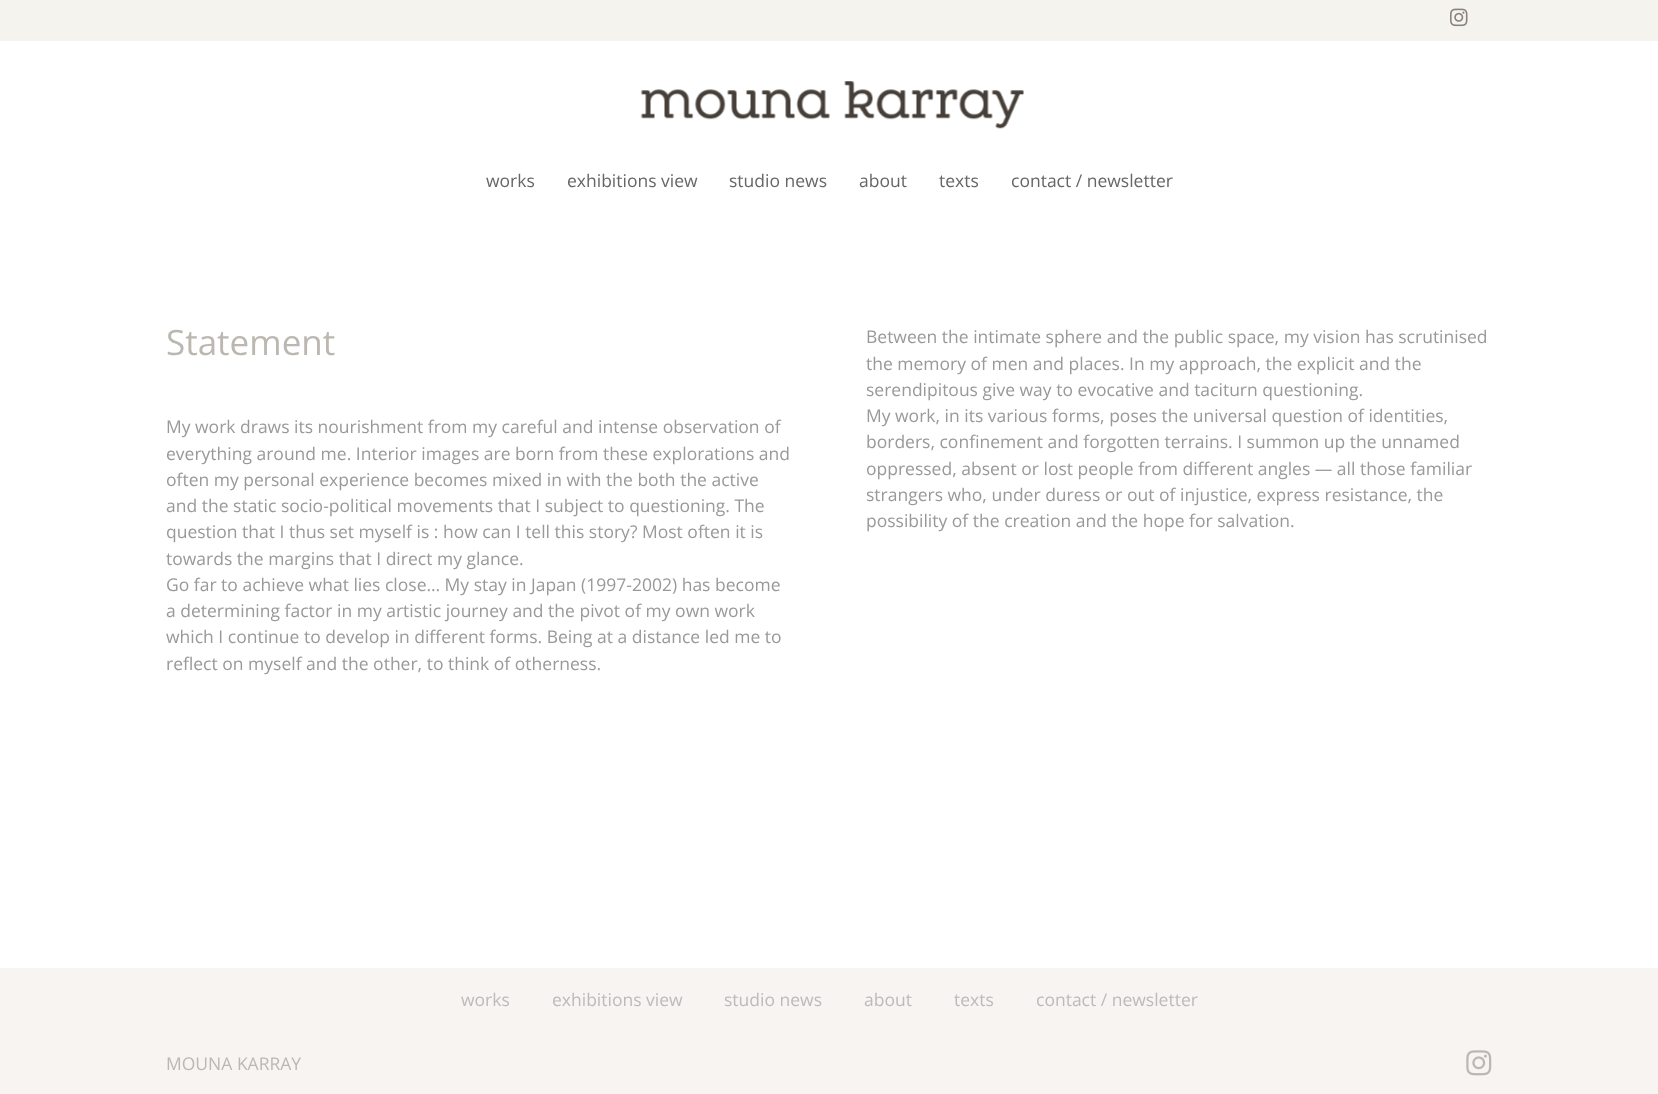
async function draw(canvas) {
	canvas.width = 1658;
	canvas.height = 1094;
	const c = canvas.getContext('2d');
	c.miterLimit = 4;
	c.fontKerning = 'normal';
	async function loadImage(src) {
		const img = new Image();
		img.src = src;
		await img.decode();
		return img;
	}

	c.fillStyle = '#fff';
	c.fillRect(0, 0, 1658, 1094);
	c.fillStyle = '#f4f3ee';
	c.fillRect(0, 0, 1658, 41);
	c.drawImage(await loadImage('img1.png'), 1450, 8, 18, 19);
	c.drawImage(await loadImage('img2.png'), 640, 81, 384, 48);
	c.font = '17.5px Open Sans';
	c.fillStyle = '#666';
	for (const [text, x, y] of [
		['works', 486, 187],
		['exhibitions view', 567, 187],
		['studio news', 729, 187],
		['about', 859, 187],
		['texts', 939, 187],
		['contact / newsletter', 1011, 187],
	]) {
		c.fillText(text, x, y);
	}
	c.font = '35px Open Sans';
	c.fillStyle = '#bcb8b1';
	c.fillText('Statement', 166, 355);
	c.font = '17.5px Open Sans';
	c.fillStyle = '#999';
	for (const [text, x, y] of [
		['My work draws its nourishment from my careful and intense observation of', 166, 433],
		['everything around me. Interior images are born from these explorations and', 166, 460],
		['often my personal experience becomes mixed in with the both the active', 166, 486],
		['and the static socio-political movements that I subject to questioning. The', 166, 512],
		['question that I thus set myself is : how can I tell this story? Most often it is', 166, 538],
		['towards the margins that I direct my glance.', 166, 565],
		['Go far to achieve what lies close… My stay in Japan (1997-2002) has become', 166, 591],
		['a determining factor in my artistic journey and the pivot of my own work', 166, 617],
		['which I continue to develop in different forms. Being at a distance led me to', 166, 643],
		['reflect on myself and the other, to think of otherness.', 166, 670],
		['Between the intimate sphere and the public space, my vision has scrutinised', 866, 343],
		['the memory of men and places. In my approach, the explicit and the', 866, 370],
		['serendipitous give way to evocative and taciturn questioning.', 866, 396],
		['My work, in its various forms, poses the universal question of identities,', 866, 422],
		['borders, confinement and forgotten terrains. I summon up the unnamed', 866, 448],
		['oppressed, absent or lost people from different angles — all those familiar', 866, 475],
		['strangers who, under duress or out of injustice, express resistance, the', 866, 501],
		['possibility of the creation and the hope for salvation.', 866, 527],
	]) {
		c.fillText(text, x, y);
	}
	c.fillStyle = '#f7f4f2';
	c.fillRect(0, 968, 1658, 126);
	c.fillStyle = '#bbb';
	for (const [text, x, y] of [
		['works', 461, 1006],
		['exhibitions view', 552, 1006],
		['studio news', 724, 1006],
		['about', 864, 1006],
		['texts', 954, 1006],
		['contact / newsletter', 1036, 1006],
	]) {
		c.fillText(text, x, y);
	}
	c.fillStyle = '#bcb8b1';
	c.fillText('MOUNA KARRAY', 166, 1070);
	c.drawImage(await loadImage('img3.png'), 1466, 1050, 26, 26);
}

draw(document.querySelector('canvas'));
